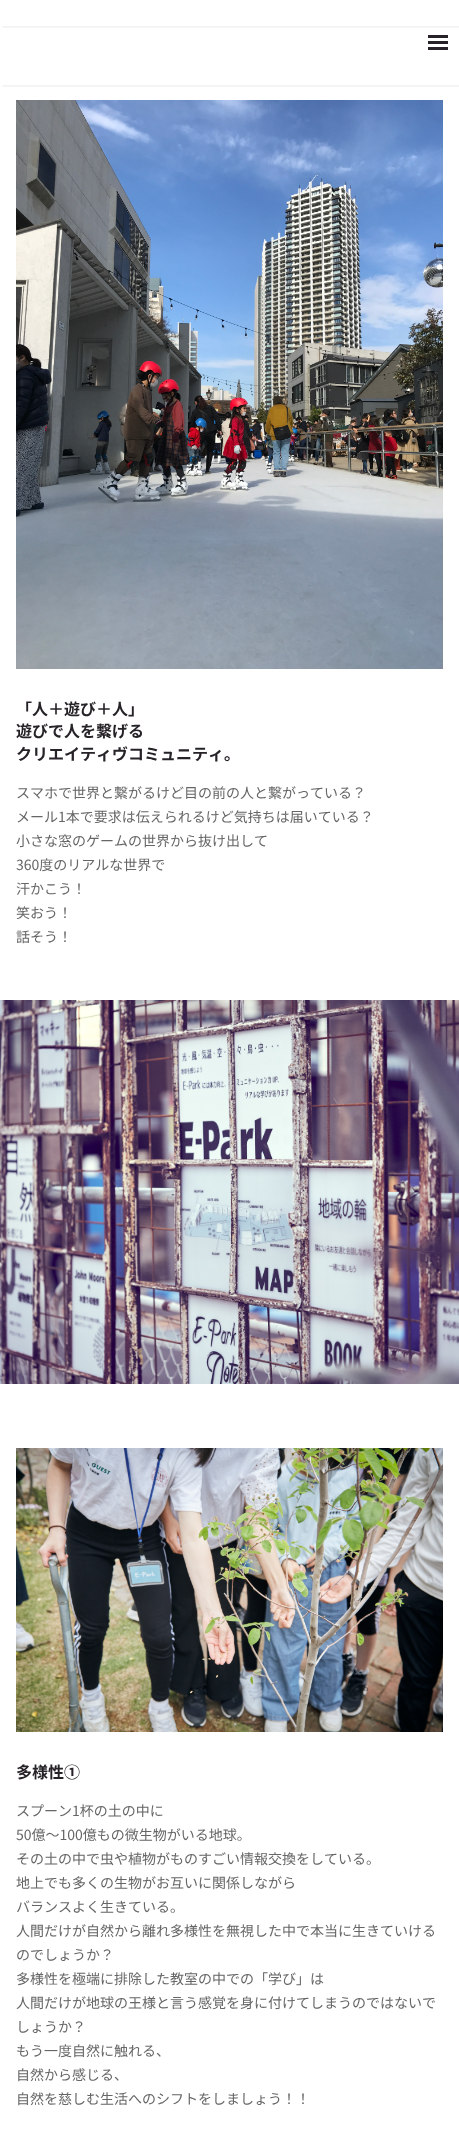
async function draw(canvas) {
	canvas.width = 459;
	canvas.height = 2155;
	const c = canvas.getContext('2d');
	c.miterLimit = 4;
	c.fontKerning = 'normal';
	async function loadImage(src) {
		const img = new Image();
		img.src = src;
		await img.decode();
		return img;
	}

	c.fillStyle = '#fff';
	c.fillRect(0, 0, 459, 2155);
	c.save();
	c.beginPath();
	c.rect(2, 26, 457, 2);
	c.clip();
	c.fillStyle = '#0000000d';
	c.filter = 'blur(1px)';
	c.beginPath();
	c.rect(2, 2, 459, 26);
	c.fill();
	c.filter = 'none';
	c.restore();
	c.save();
	c.beginPath();
	c.rect(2, 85, 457, 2);
	c.clip();
	c.fillStyle = '#0000000d';
	c.filter = 'blur(1px)';
	c.beginPath();
	c.rect(2, 2, 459, 85);
	c.fill();
	c.filter = 'none';
	c.restore();
	for (const [x, y, w, h, color] of [
		[428, 41, 20, 3, '#262228'],
		[428, 35, 20, 3, '#262228'],
		[428, 47, 20, 3, '#262228'],
	]) {
		c.fillStyle = color;
		c.fillRect(x, y, w, h);
	}
	c.drawImage(await loadImage('img1.png'), 16, 100, 427, 569);
	c.font = 'bold 16px Noto Sans JP';
	for (const [text, x, y] of [
		['「人＋遊び＋人」', 16, 715],
		['遊びで人を繋げる', 16, 737],
		['クリエイティヴコミュニティ。', 16, 760],
	]) {
		c.fillText(text, x, y);
	}
	c.font = '14px Noto Sans JP';
	c.fillStyle = '#666';
	for (const [text, x, y] of [
		['スマホで世界と繋がるけど目の前の人と繋がっている？', 16, 798],
		['メール1本で要求は伝えられるけど気持ちは届いている？', 16, 822],
		['小さな窓のゲームの世界から抜け出して', 16, 846],
		['360度のリアルな世界で', 16, 870],
		['汗かこう！', 16, 894],
		['笑おう！', 16, 918],
		['話そう！', 16, 942],
	]) {
		c.fillText(text, x, y);
	}
	c.drawImage(await loadImage('img2.png'), 0, 1000, 459, 384);
	c.drawImage(await loadImage('img3.png'), 16, 1448, 427, 284);
	c.font = 'bold 16px Noto Sans JP';
	c.fillStyle = '#262228';
	c.fillText('多様性①', 16, 1778);
	c.font = '14px Noto Sans JP';
	c.fillStyle = '#666';
	for (const [text, x, y] of [
		['スプーン1杯の土の中に', 16, 1816],
		['50億～100億もの微生物がいる地球。', 16, 1840],
		['その土の中で虫や植物がものすごい情報交換をしている。', 16, 1864],
		['地上でも多くの生物がお互いに関係しながら', 16, 1888],
		['バランスよく生きている。', 16, 1912],
		['人間だけが自然から離れ多様性を無視した中で本当に生きていける', 16, 1936],
		['のでしょうか？', 16, 1960],
		['多様性を極端に排除した教室の中での「学び」は', 16, 1984],
		['人間だけが地球の王様と言う感覚を身に付けてしまうのではないで', 16, 2008],
		['しょうか？', 16, 2032],
		['もう一度自然に触れる、', 16, 2056],
		['自然から感じる、', 16, 2080],
		['自然を慈しむ生活へのシフトをしましょう！！', 16, 2104],
	]) {
		c.fillText(text, x, y);
	}
}

draw(document.querySelector('canvas'));
